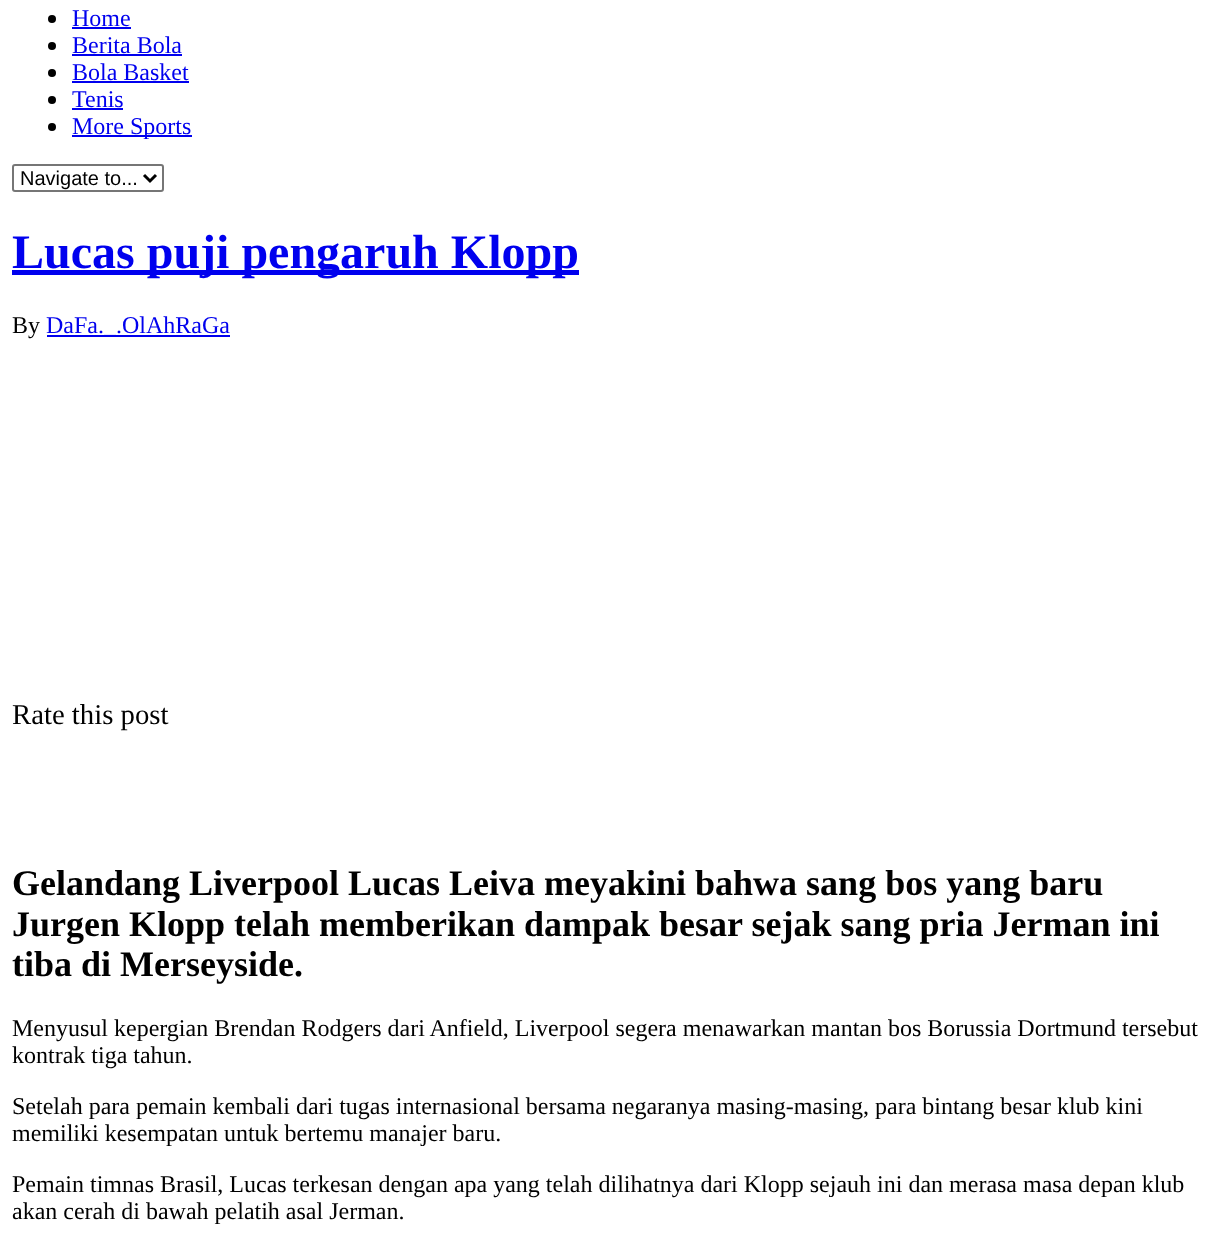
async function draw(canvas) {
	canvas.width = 1229;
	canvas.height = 1249;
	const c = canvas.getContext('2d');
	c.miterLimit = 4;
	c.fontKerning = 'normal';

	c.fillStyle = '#fff';
	c.fillRect(0, 0, 1229, 1249);
	c.fillStyle = '#000';
	c.beginPath();
	c.arc(52, 19, 4, 0, 2 * Math.PI);
	c.fill();
	c.font = '24px Liberation Serif';
	c.fillStyle = '#00e';
	c.fillText('Home', 72, 26);
	c.fillRect(72, 27, 59, 2);
	c.fillStyle = '#000';
	c.beginPath();
	c.arc(52, 46, 4, 0, 2 * Math.PI);
	c.fill();
	c.fillStyle = '#00e';
	c.fillText('Berita Bola', 72, 53);
	c.fillRect(72, 54, 110, 2);
	c.fillStyle = '#000';
	c.beginPath();
	c.arc(52, 73, 4, 0, 2 * Math.PI);
	c.fill();
	c.fillStyle = '#00e';
	c.fillText('Bola Basket', 72, 80);
	c.fillRect(72, 81, 117, 2);
	c.fillStyle = '#000';
	c.beginPath();
	c.arc(52, 100, 4, 0, 2 * Math.PI);
	c.fill();
	c.fillStyle = '#00e';
	c.fillText('Tenis', 72, 107);
	c.fillRect(72, 108, 51, 2);
	c.fillStyle = '#000';
	c.beginPath();
	c.arc(52, 127, 4, 0, 2 * Math.PI);
	c.fill();
	c.fillStyle = '#00e';
	c.fillRect(72, 135, 120, 2);
	c.fillText('More Sports', 72, 134);
	c.beginPath();
	c.roundRect(13, 165, 150, 26, 2);
	c.strokeStyle = '#767676';
	c.lineWidth = 2;
	c.stroke();
	c.beginPath();
	c.moveTo(144, 175);
	c.lineTo(150, 181);
	c.lineTo(156, 175);
	c.strokeStyle = '#000';
	c.lineWidth = 3;
	c.stroke();
	c.font = '20px Liberation Sans';
	c.fillStyle = '#000';
	c.fillText('Navigate to...', 20, 185);
	c.fillStyle = '#00e';
	c.fillRect(12, 270, 567, 5);
	c.font = 'bold 48px Liberation Serif';
	c.fillText('Lucas puji pengaruh Klopp', 12, 268);
	c.font = '24px Liberation Serif';
	c.fillStyle = '#000';
	c.fillText('By', 12, 333);
	c.fillStyle = '#00e';
	c.fillRect(47, 335, 183, 2);
	c.fillText('DaFa._.OlAhRaGa', 46, 333);
	c.font = '28.75px Liberation Serif';
	c.fillStyle = '#000';
	c.fillText('Rate this post', 12, 724);
	c.font = 'bold 36px Liberation Serif';
	for (const [text, x, y] of [
		['Gelandang Liverpool Lucas Leiva meyakini bahwa sang bos yang baru', 12, 895],
		['Jurgen Klopp telah memberikan dampak besar sejak sang pria Jerman ini', 12, 936],
		['tiba di Merseyside.', 12, 976],
	]) {
		c.fillText(text, x, y);
	}
	c.font = '24px Liberation Serif';
	for (const [text, x, y] of [
		['Menyusul kepergian Brendan Rodgers dari Anfield, Liverpool segera menawarkan mantan bos Borussia Dortmund tersebut', 12, 1036],
		['kontrak tiga tahun.', 12, 1063],
		['Setelah para pemain kembali dari tugas internasional bersama negaranya masing-masing, para bintang besar klub kini', 12, 1114],
		['memiliki kesempatan untuk bertemu manajer baru.', 12, 1141],
		['Pemain timnas Brasil, Lucas terkesan dengan apa yang telah dilihatnya dari Klopp sejauh ini dan merasa masa depan klub', 12, 1192],
		['akan cerah di bawah pelatih asal Jerman.', 12, 1219],
	]) {
		c.fillText(text, x, y);
	}
}

draw(document.querySelector('canvas'));
